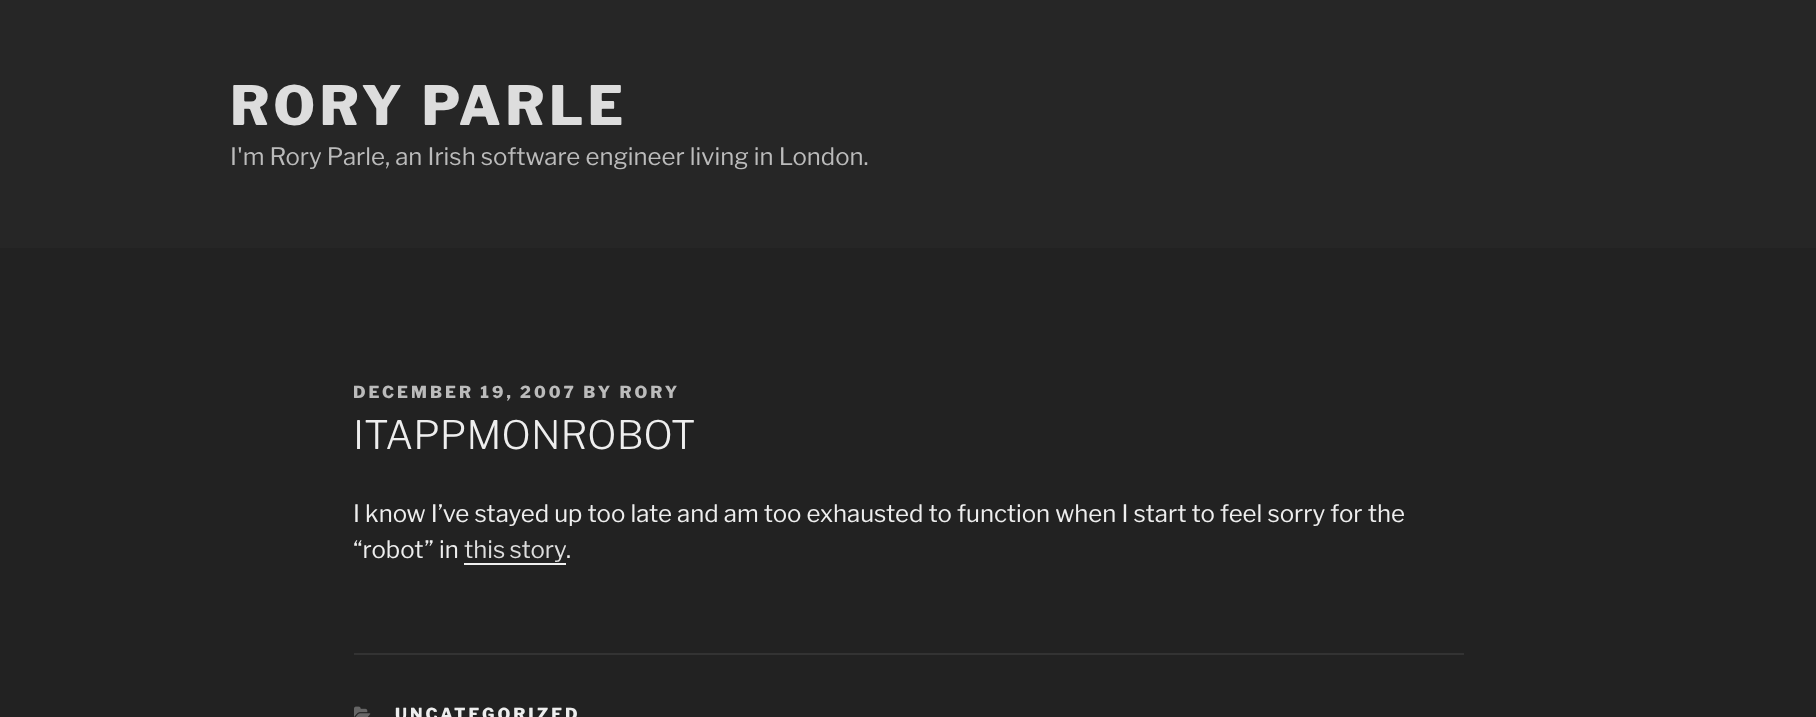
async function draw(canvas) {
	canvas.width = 1816;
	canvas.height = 717;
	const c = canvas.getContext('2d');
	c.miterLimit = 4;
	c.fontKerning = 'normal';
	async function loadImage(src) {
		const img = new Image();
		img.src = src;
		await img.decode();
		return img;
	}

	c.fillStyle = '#222';
	c.fillRect(0, 0, 1816, 717);
	c.fillStyle = '#262626';
	c.fillRect(0, 0, 1816, 248);
	c.letterSpacing = '4.25px';
	c.font = '100 54px Libre Franklin';
	c.fillStyle = '#ddd';
	c.fillText('RORY PARLE', 230, 125);
	c.letterSpacing = '0px';
	c.font = '100 24px "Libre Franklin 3"';
	c.fillStyle = '#bbb';
	c.fillText('I\'m Rory Parle, an Irish software engineer living in London.', 230, 165);
	c.letterSpacing = '3px';
	c.font = '100 16.5px Libre Franklin';
	c.fillText('DECEMBER 19, 2007 BY RORY', 353, 398);
	c.letterSpacing = '0px';
	c.font = '100 39px "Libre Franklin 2"';
	c.fillStyle = '#eee';
	c.fillText('ITAPPMONROBOT', 353, 449);
	c.font = '100 24px "Libre Franklin 3"';
	c.fillText('I know I’ve stayed up too late and am too exhausted to function when I start to feel sorry for the', 353, 522);
	c.fillText('“robot” in', 353, 558);
	c.wordSpacing = '-1px';
	c.fillStyle = '#ddd';
	c.fillText('this story', 464, 558);
	c.fillStyle = '#f0f0f0';
	c.fillRect(464, 563, 102, 2);
	c.wordSpacing = '0px';
	c.fillStyle = '#eee';
	c.fillText('.', 566, 558);
	c.fillStyle = '#333';
	c.fillRect(354, 653, 1110, 2);
	c.drawImage(await loadImage('img1.png'), 354, 706, 17, 11);
	c.letterSpacing = '3px';
	c.font = '100 16.5px Libre Franklin';
	c.fillStyle = '#eee';
	c.fillText('UNCATEGORIZED', 395, 720);
}

draw(document.querySelector('canvas'));
